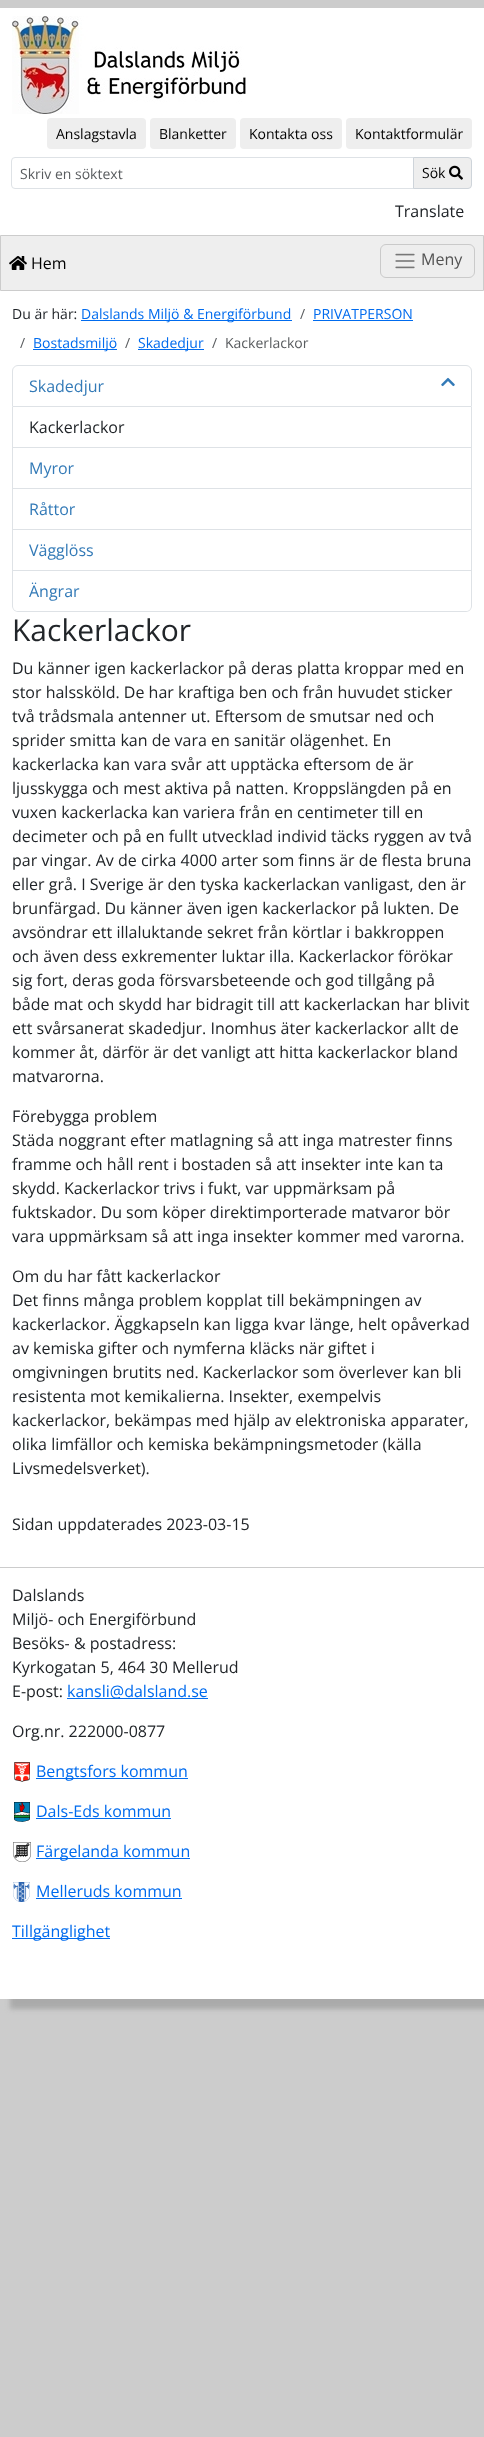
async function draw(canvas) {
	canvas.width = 484;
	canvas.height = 2437;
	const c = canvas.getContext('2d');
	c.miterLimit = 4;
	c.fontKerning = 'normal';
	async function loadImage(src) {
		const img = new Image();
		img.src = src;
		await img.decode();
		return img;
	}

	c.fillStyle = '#ccc';
	c.fillRect(0, 0, 484, 2437);
	c.fillStyle = '#aaa';
	c.filter = 'blur(2.5px)';
	c.beginPath();
	c.rect(10, 18, 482, 1991);
	c.fill();
	c.filter = 'none';
	c.fillStyle = '#fff';
	c.fillRect(0, 8, 484, 1991);
	c.drawImage(await loadImage('img1.png'), 12, 16, 234, 98);
	c.fillStyle = '#eee';
	c.beginPath();
	c.roundRect(47, 118, 99, 31, 4);
	c.fill();
	c.font = '14px Open Sans';
	c.fillStyle = '#000';
	c.fillText('Anslagstavla', 56, 139);
	c.fillStyle = '#eee';
	c.beginPath();
	c.roundRect(150, 118, 86, 31, 4);
	c.fill();
	c.fillStyle = '#000';
	c.fillText('Blanketter', 159, 139);
	c.fillStyle = '#eee';
	c.beginPath();
	c.roundRect(240, 118, 102, 31, 4);
	c.fill();
	c.fillStyle = '#000';
	c.fillText('Kontakta oss', 249, 139);
	c.fillStyle = '#eee';
	c.beginPath();
	c.roundRect(346, 118, 126, 31, 4);
	c.fill();
	c.fillStyle = '#000';
	c.fillText('Kontaktformulär', 355, 139);
	c.beginPath();
	c.roundRect(11.5, 157.5, 402, 31, [3.5, 0, 0, 3.5]);
	c.strokeStyle = '#dee2e6';
	c.stroke();
	c.fillStyle = '#595c5f';
	c.fillText('Skriv en söktext', 20, 179);
	c.fillStyle = '#eee';
	c.beginPath();
	c.roundRect(413.5, 157.5, 58, 31, [0, 3.5, 3.5, 0]);
	c.fill();
	c.strokeStyle = '#ced4da';
	c.stroke();
	c.fillStyle = '#000';
	c.fillText('Sök', 422, 178);
	c.drawImage(await loadImage('img2.png'), 449, 165, 14, 15);
	c.font = '16px Open Sans';
	c.fillStyle = '#212529';
	c.fillText('Translate', 395, 217);
	c.fillStyle = '#eee';
	c.beginPath();
	c.rect(0.5, 235.5, 483, 55);
	c.fill();
	c.strokeStyle = '#ccc';
	c.stroke();
	c.drawImage(await loadImage('img3.png'), 9, 256, 18, 14);
	c.fillStyle = '#000';
	c.fillText('Hem', 31, 269);
	c.beginPath();
	c.roundRect(380.5, 244.5, 94, 33, 5.5);
	c.strokeStyle = '#cacaca';
	c.stroke();
	c.drawImage(await loadImage('img4.png'), 395, 253, 20, 16);
	c.fillStyle = '#535353';
	c.fillText('Meny', 421, 265);
	c.font = '14px Open Sans';
	c.fillStyle = '#212529';
	c.fillText('Du är här:', 12, 319);
	c.fillStyle = '#006bee';
	c.fillRect(81, 320, 211, 1);
	c.fillText('Dalslands Miljö & Energiförbund', 81, 319);
	c.fillStyle = '#595c5f';
	c.fillText('/', 300, 319);
	c.fillStyle = '#006bee';
	c.fillText('PRIVATPERSON', 313, 319);
	c.fillRect(313, 320, 100, 1);
	c.fillStyle = '#595c5f';
	c.fillText('/', 20, 348);
	c.fillStyle = '#006bee';
	c.fillRect(33, 349, 84, 1);
	c.fillText('Bostadsmiljö', 33, 348);
	c.fillStyle = '#595c5f';
	c.fillText('/', 125, 348);
	c.fillStyle = '#006bee';
	c.fillRect(138, 349, 66, 1);
	c.fillText('Skadedjur', 138, 348);
	c.fillStyle = '#595c5f';
	c.fillText('/', 212, 348);
	c.fillText('Kackerlackor', 225, 348);
	c.beginPath();
	c.roundRect(12.5, 365.5, 459, 41, [5.5, 5.5, 0, 0]);
	c.strokeStyle = '#dee2e6';
	c.stroke();
	c.font = '16px Open Sans';
	c.fillStyle = '#337ab7';
	c.fillText('Skadedjur', 29, 392);
	c.drawImage(await loadImage('img5.png'), 441, 377, 14, 10);
	for (const [x, y, w, h, color] of [
		[471, 407, 1, 164, '#dee2e6'],
		[12, 447, 460, 1, '#dee2e6'],
		[12, 407, 1, 41, '#dee2e6'],
	]) {
		c.fillStyle = color;
		c.fillRect(x, y, w, h);
	}
	c.fillStyle = '#212529';
	c.fillText('Kackerlackor', 29, 433);
	c.fillStyle = '#dee2e6';
	c.fillRect(12, 488, 460, 1);
	c.fillRect(12, 448, 1, 41);
	c.fillStyle = '#337ab7';
	c.fillText('Myror', 29, 474);
	c.fillStyle = '#dee2e6';
	c.fillRect(12, 529, 460, 1);
	c.fillRect(12, 489, 1, 41);
	c.fillStyle = '#337ab7';
	c.fillText('Råttor', 29, 515);
	c.fillStyle = '#dee2e6';
	c.fillRect(12, 570, 460, 1);
	c.fillRect(12, 530, 1, 41);
	c.fillStyle = '#337ab7';
	c.fillText('Vägglöss', 29, 556);
	c.fillStyle = '#dee2e6';
	c.beginPath();
	c.moveTo(12, 571);
	c.lineTo(472, 571);
	c.lineTo(472, 606);
	c.bezierCurveTo(472, 609, 469, 612, 466, 612);
	c.lineTo(18, 612);
	c.bezierCurveTo(15, 612, 12, 609, 12, 606);
	c.closePath();
	c.moveTo(13, 571);
	c.lineTo(471, 571);
	c.lineTo(471, 606);
	c.bezierCurveTo(471, 609, 469, 611, 466, 611);
	c.lineTo(18, 611);
	c.bezierCurveTo(15, 611, 13, 609, 13, 606);
	c.closePath();
	c.fill('evenodd');
	c.fillStyle = '#337ab7';
	c.fillText('Ängrar', 29, 597);
	c.font = '30px Open Sans';
	c.fillStyle = '#212529';
	c.fillText('Kackerlackor', 12, 641);
	c.font = '16px Open Sans';
	for (const [text, x, y] of [
		['Du känner igen kackerlackor på deras platta kroppar med en', 12, 674],
		['stor halssköld. De har kraftiga ben och från huvudet sticker', 12, 698],
		['två trådsmala antenner ut. Eftersom de smutsar ned och', 12, 722],
		['sprider smitta kan de vara en sanitär olägenhet. En', 12, 746],
		['kackerlacka kan vara svår att upptäcka eftersom de är', 12, 770],
		['ljusskygga och mest aktiva på natten. Kroppslängden på en', 12, 794],
		['vuxen kackerlacka kan variera från en centimeter till en', 12, 818],
		['decimeter och på en fullt utvecklad individ täcks ryggen av två', 12, 842],
		['par vingar. Av de cirka 4000 arter som finns är de flesta bruna', 12, 866],
		['eller grå. I Sverige är den tyska kackerlackan vanligast, den är', 12, 890],
		['brunfärgad. Du känner även igen kackerlackor på lukten. De', 12, 914],
		['avsöndrar ett illaluktande sekret från körtlar i bakkroppen', 12, 938],
		['och även dess exkrementer luktar illa. Kackerlackor förökar', 12, 962],
		['sig fort, deras goda försvarsbeteende och god tillgång på', 12, 986],
		['både mat och skydd har bidragit till att kackerlackan har blivit', 12, 1010],
		['ett svårsanerat skadedjur. Inomhus äter kackerlackor allt de', 12, 1034],
		['kommer åt, därför är det vanligt att hitta kackerlackor bland', 12, 1058],
		['matvarorna.', 12, 1082],
		['Förebygga problem', 12, 1122],
		['Städa noggrant efter matlagning så att inga matrester finns', 12, 1146],
		['framme och håll rent i bostaden så att insekter inte kan ta', 12, 1170],
		['skydd. Kackerlackor trivs i fukt, var uppmärksam på', 12, 1194],
		['fuktskador. Du som köper direktimporterade matvaror bör', 12, 1218],
		['vara uppmärksam så att inga insekter kommer med varorna.', 12, 1242],
		['Om du har fått kackerlackor', 12, 1282],
		['Det finns många problem kopplat till bekämpningen av', 12, 1306],
		['kackerlackor. Äggkapseln kan ligga kvar länge, helt opåverkad', 12, 1330],
		['av kemiska gifter och nymferna kläcks när giftet i', 12, 1354],
		['omgivningen brutits ned. Kackerlackor som överlever kan bli', 12, 1378],
		['resistenta mot kemikalierna. Insekter, exempelvis', 12, 1402],
		['kackerlackor, bekämpas med hjälp av elektroniska apparater,', 12, 1426],
		['olika limfällor och kemiska bekämpningsmetoder (källa', 12, 1450],
		['Livsmedelsverket).', 12, 1474],
		['Sidan uppdaterades 2023-03-15', 12, 1530],
	]) {
		c.fillText(text, x, y);
	}
	c.fillStyle = '#ccc';
	c.fillRect(0, 1567, 484, 1);
	c.fillStyle = '#212529';
	for (const [text, x, y] of [
		['Dalslands', 12, 1601],
		['Miljö- och Energiförbund', 12, 1625],
		['Besöks- & postadress:', 12, 1649],
		['Kyrkogatan 5, 464 30 Mellerud', 12, 1673],
		['E-post:', 12, 1697],
	]) {
		c.fillText(text, x, y);
	}
	c.fillStyle = '#006bee';
	c.fillRect(67, 1698, 141, 1);
	c.fillText('kansli@dalsland.se', 67, 1697);
	c.fillStyle = '#212529';
	c.fillText('Org.nr. 222000-0877', 12, 1737);
	c.drawImage(await loadImage('img6.png'), 14, 1762, 16, 20);
	c.fillStyle = '#006bee';
	c.fillRect(36, 1778, 152, 1);
	c.fillText('Bengtsfors kommun', 36, 1777);
	c.drawImage(await loadImage('img7.png'), 14, 1802, 16, 20);
	c.fillText('Dals-Eds kommun', 36, 1817);
	c.fillRect(36, 1818, 135, 1);
	c.drawImage(await loadImage('img8.png'), 13, 1842, 18, 20);
	c.fillRect(36, 1858, 154, 1);
	c.fillText('Färgelanda kommun', 36, 1857);
	c.drawImage(await loadImage('img9.png'), 13, 1882, 17, 20);
	c.fillText('Melleruds kommun', 36, 1897);
	c.fillRect(36, 1898, 146, 1);
	c.fillRect(12, 1938, 98, 1);
	c.fillText('Tillgänglighet', 12, 1937);
}

draw(document.querySelector('canvas'));
